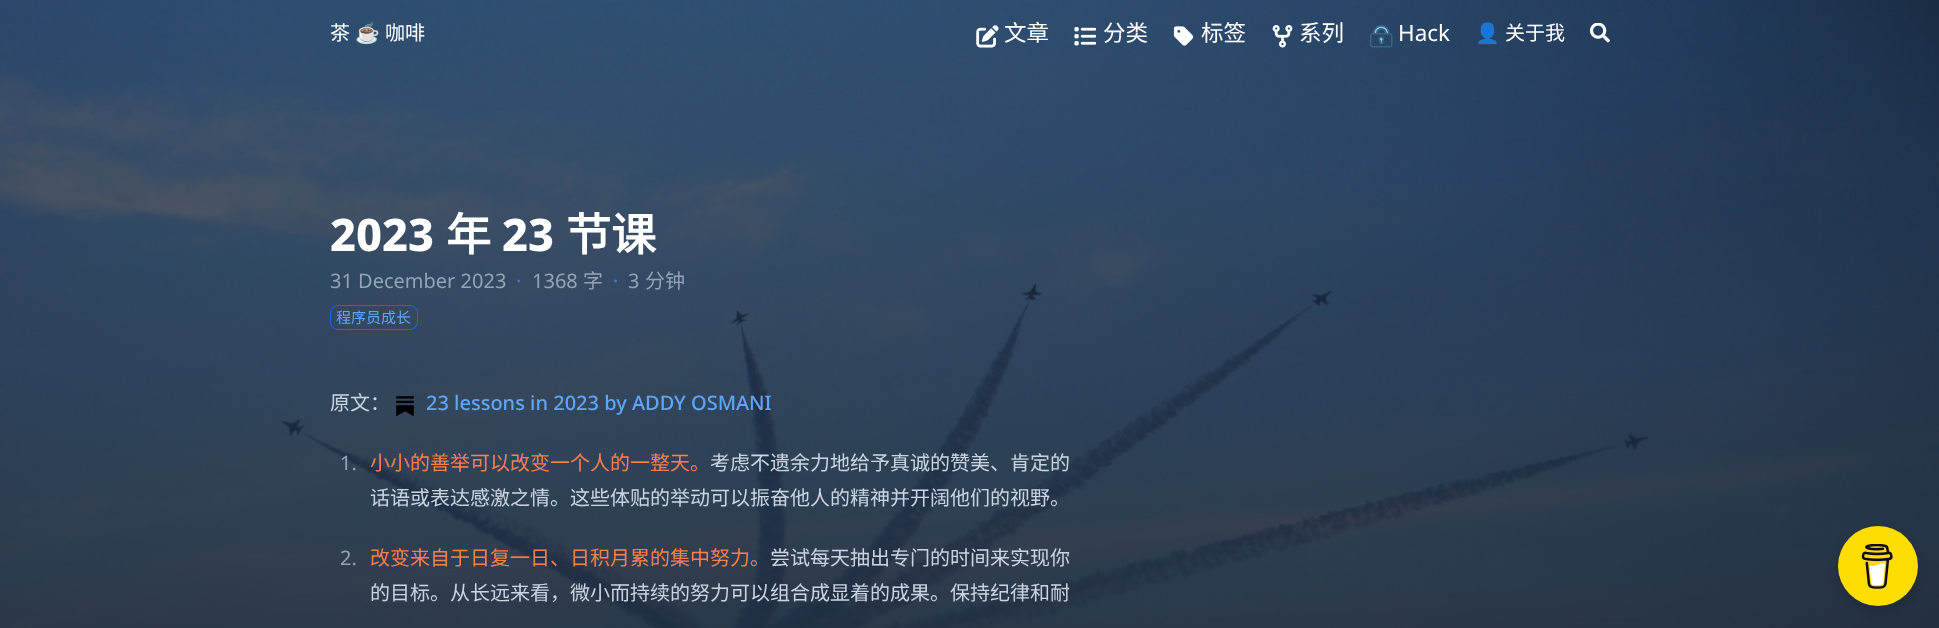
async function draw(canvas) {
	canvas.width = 1939;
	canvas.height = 628;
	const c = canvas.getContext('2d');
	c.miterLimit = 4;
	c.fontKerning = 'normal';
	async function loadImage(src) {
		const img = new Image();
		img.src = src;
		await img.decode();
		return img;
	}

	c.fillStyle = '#fff';
	c.fillRect(0, 0, 1939, 628);
	c.drawImage(await loadImage('img7.png'), 0, 0, 1939, 628);
	c.font = '20px Noto Sans CJK SC';
	c.fillText('茶', 330, 40);
	c.font = '20px Noto Color Emoji';
	c.fillText('☕️', 355, 40);
	c.font = '20px Noto Sans CJK SC';
	c.fillText('咖啡', 385, 40);
	c.drawImage(await loadImage('img1.png'), 976, 25, 23, 23);
	c.font = '22.5px Noto Sans CJK SC';
	c.fillText('文章', 1004, 41);
	c.drawImage(await loadImage('img2.png'), 1074, 27, 22, 19);
	c.fillText('分类', 1103, 41);
	c.drawImage(await loadImage('img3.png'), 1173, 26, 21, 20);
	c.fillText('标签', 1201, 41);
	c.drawImage(await loadImage('img4.png'), 1272, 25, 21, 23);
	c.fillText('系列', 1299, 41);
	c.drawImage(await loadImage('img5.png'), 1370, 25, 23, 23);
	c.font = '22.5px Noto Sans';
	c.fillText('Hack', 1398, 41);
	c.font = '20px Noto Color Emoji';
	c.fillText('👤', 1475, 40);
	c.font = '20px Noto Sans CJK SC';
	c.fillText('关于我', 1505, 40);
	c.drawImage(await loadImage('img6.png'), 1590, 23, 20, 20);
	c.font = '800 45px Noto Sans';
	c.fillText('2023', 330, 251);
	c.font = 'bold 45px Noto Sans CJK SC';
	c.fillText('年', 446, 251);
	c.font = '800 45px Noto Sans';
	c.fillText('23', 502, 251);
	c.font = 'bold 45px Noto Sans CJK SC';
	c.fillText('节课', 566, 251);
	c.font = '20px Noto Sans';
	c.fillStyle = '#94a3b8';
	c.fillText('31 December 2023', 330, 288);
	c.fillStyle = '#3b82f6';
	c.fillText('·', 516, 288);
	c.fillStyle = '#94a3b8';
	c.fillText('1368', 532, 288);
	c.font = '20px Noto Sans CJK SC';
	c.fillText('字', 583, 288);
	c.font = '20px Noto Sans';
	c.fillStyle = '#3b82f6';
	c.fillText('·', 613, 288);
	c.fillStyle = '#94a3b8';
	c.fillText('3', 628, 288);
	c.font = '20px Noto Sans CJK SC';
	c.fillText('分钟', 645, 288);
	c.beginPath();
	c.roundRect(330.5, 305.5, 87, 24, 7.5);
	c.strokeStyle = '#2563eb';
	c.stroke();
	c.font = '15px Noto Sans CJK SC';
	c.fillStyle = '#60a5fa';
	c.fillText('程序员成长', 336, 323);
	c.font = '20px Noto Sans CJK SC';
	c.fillStyle = '#cbd5e1';
	c.fillText('原文：', 330, 410);
	c.drawImage(await loadImage('img8.png'), 396, 396, 18, 20);
	c.font = '500 20px Noto Sans';
	c.fillStyle = '#60a5fa';
	c.fillText('23 lessons in 2023 by ADDY OSMANI', 426, 410);
	c.font = '20px Noto Sans';
	c.fillStyle = '#94a3b8';
	c.fillText('1.', 340, 470);
	c.font = '20px Noto Sans CJK SC';
	c.fillStyle = '#ff7f50';
	c.fillText('小小的善举可以改变一个人的一整天。', 370, 470);
	c.fillStyle = '#cbd5e1';
	c.fillText('考虑不遗余力地给予真诚的赞美、肯定的', 710, 470);
	c.fillText('话语或表达感激之情。这些体贴的举动可以振奋他人的精神并开阔他们的视野。', 370, 505);
	c.font = '20px Noto Sans';
	c.fillStyle = '#94a3b8';
	c.fillText('2.', 340, 565);
	c.font = '20px Noto Sans CJK SC';
	c.fillStyle = '#ff7f50';
	c.fillText('改变来自于日复一日、日积月累的集中努力。', 370, 565);
	c.fillStyle = '#cbd5e1';
	c.fillText('尝试每天抽出专门的时间来实现你', 770, 565);
	c.fillText('的目标。从长远来看，微小而持续的努力可以组合成显着的成果。保持纪律和耐', 370, 600);
	c.fillStyle = '#00000026';
	c.filter = 'blur(5px)';
	c.beginPath();
	c.roundRect(1838, 531, 80, 80, 40);
	c.fill();
	c.filter = 'none';
	c.fillStyle = '#fd0';
	c.beginPath();
	c.arc(1878, 566, 40, 0, 2 * Math.PI);
	c.fill();
	c.drawImage(await loadImage('img9.png'), 1861, 544, 32, 45);
}

draw(document.querySelector('canvas'));
